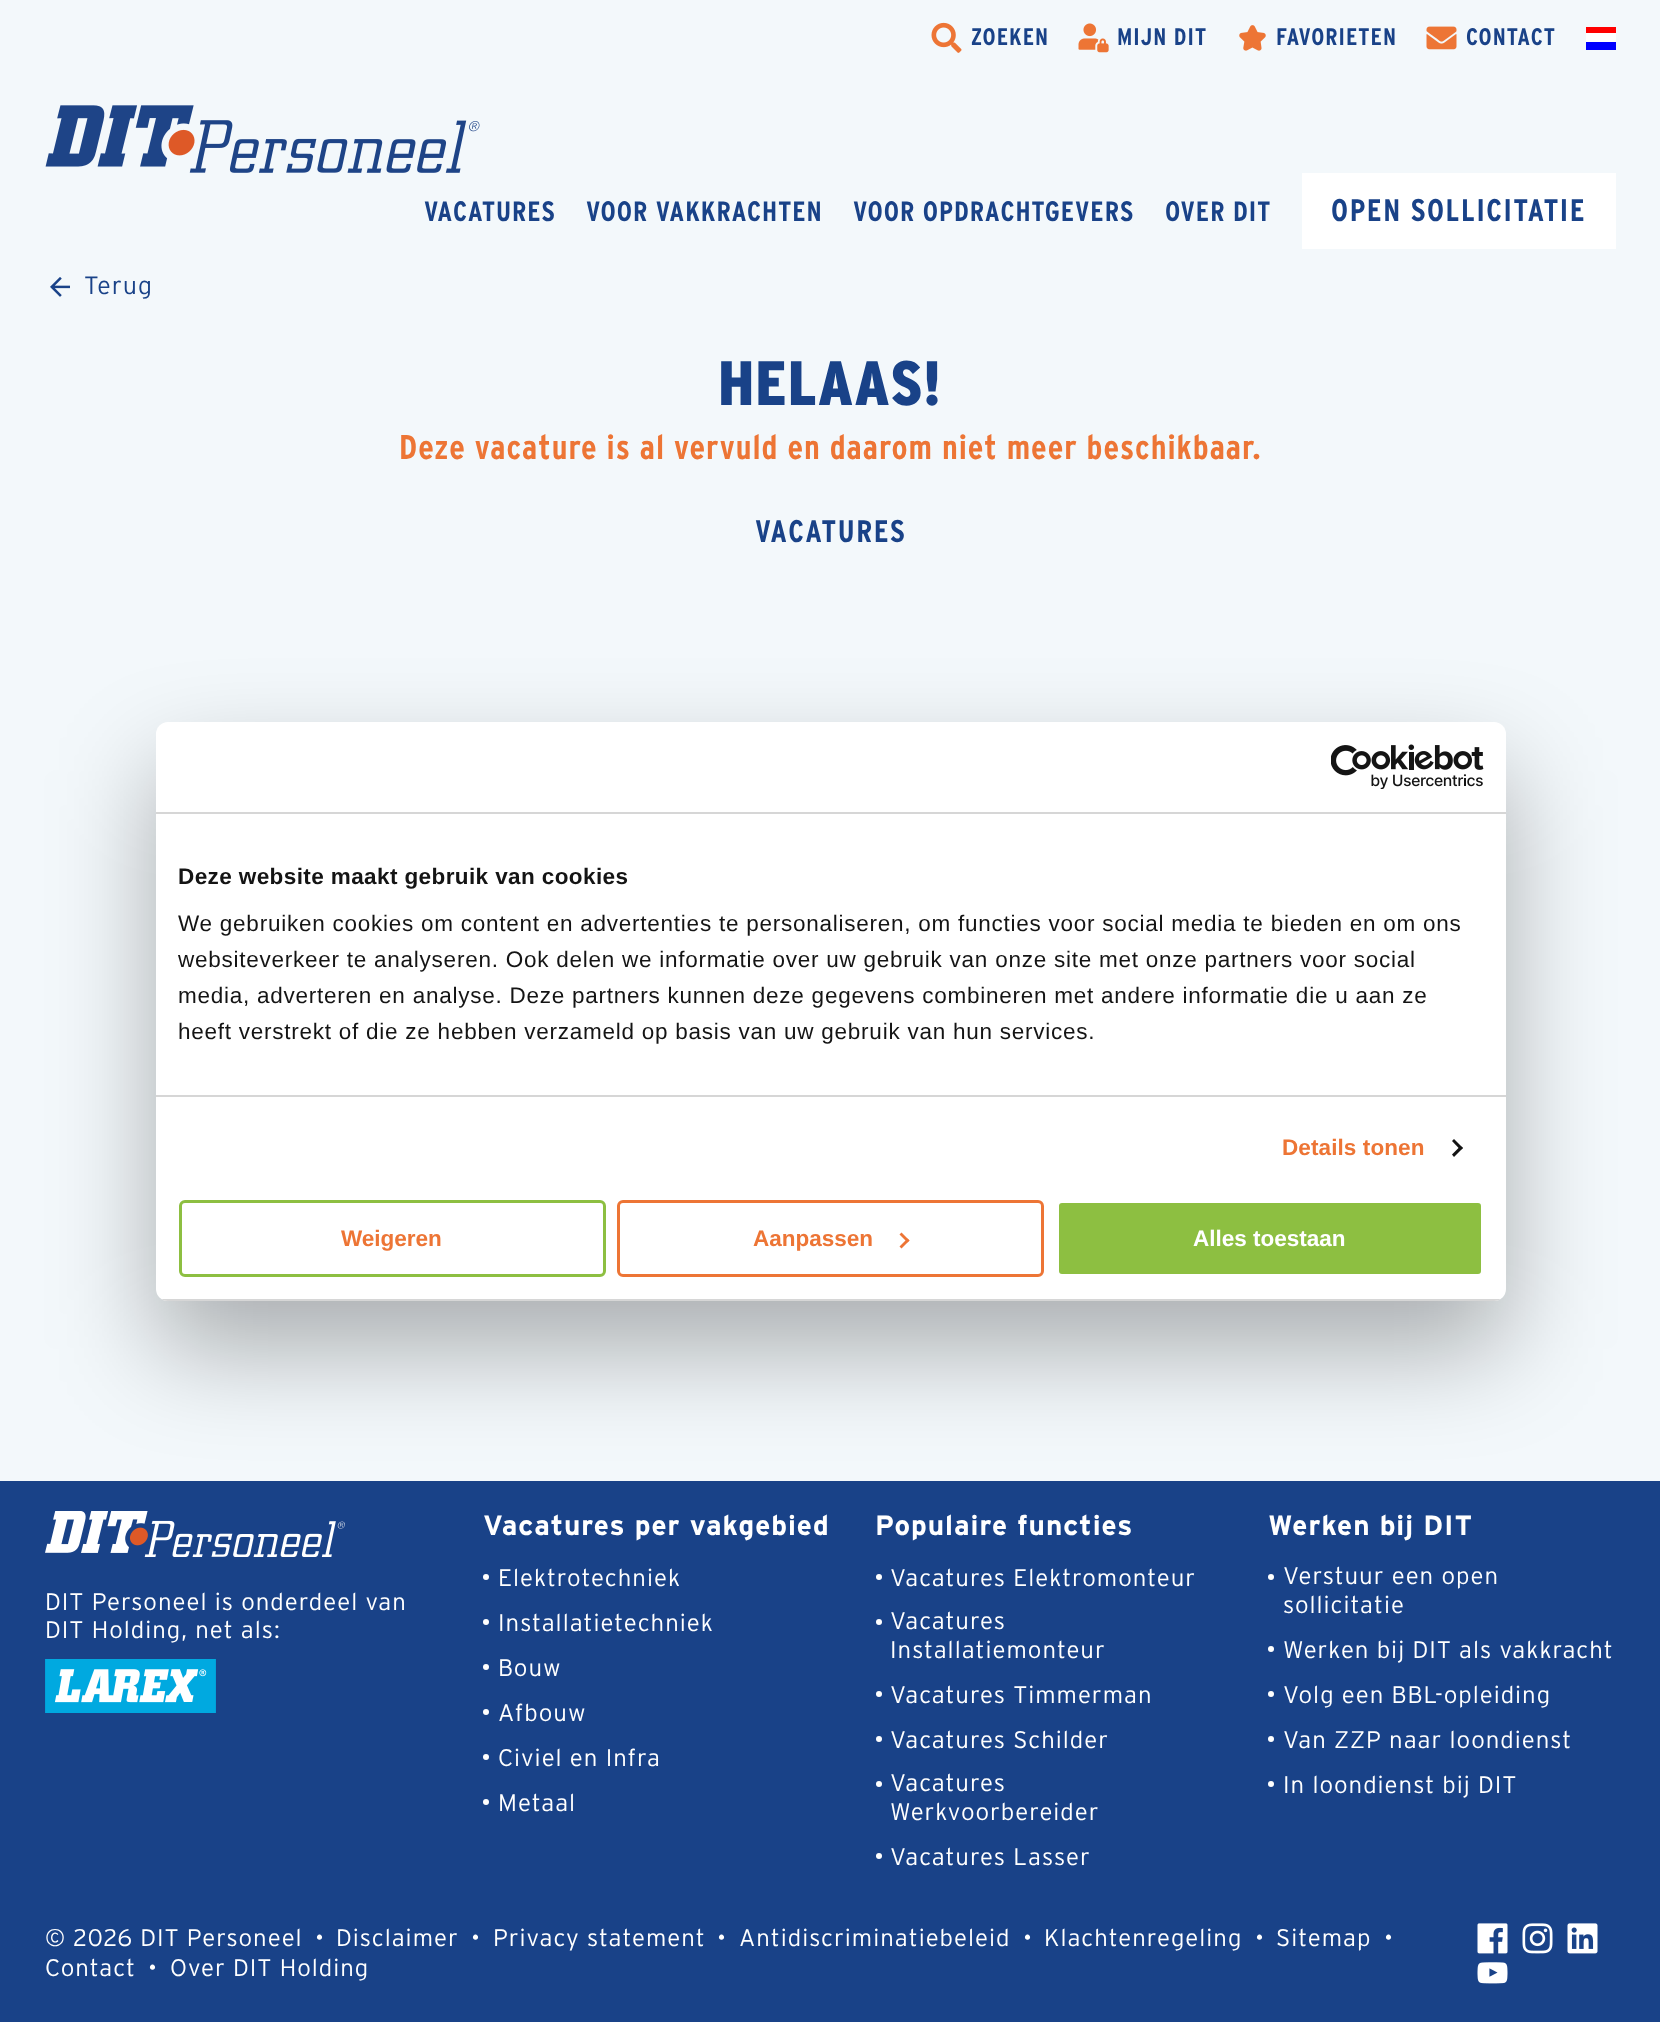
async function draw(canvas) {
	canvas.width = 1660;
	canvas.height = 2022;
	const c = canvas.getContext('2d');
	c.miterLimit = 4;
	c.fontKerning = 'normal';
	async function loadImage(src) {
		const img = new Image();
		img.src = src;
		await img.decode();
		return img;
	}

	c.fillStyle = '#f3f8fb';
	c.fillRect(0, 0, 1660, 2022);
	c.drawImage(await loadImage('img1.png'), 931, 22, 31, 31);
	c.letterSpacing = '1px';
	c.font = 'bold 24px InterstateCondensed';
	c.fillStyle = '#194288';
	c.fillText('ZOEKEN', 971, 45);
	c.drawImage(await loadImage('img2.png'), 1078, 23, 31, 30);
	c.fillText('MIJN DIT', 1117, 45);
	c.drawImage(await loadImage('img3.png'), 1239, 25, 27, 26);
	c.fillText('FAVORIETEN', 1276, 45);
	c.drawImage(await loadImage('img4.png'), 1426, 26, 31, 24);
	c.fillText('CONTACT', 1466, 45);
	for (const [x, y, w, h, color] of [
		[1586, 33, 30, 9, '#fff'],
		[1586, 27, 30, 6, '#f00'],
		[1586, 42, 30, 8, '#00f'],
	]) {
		c.fillStyle = color;
		c.fillRect(x, y, w, h);
	}
	c.drawImage(await loadImage('img5.png'), 45, 105, 435, 68);
	c.font = 'bold 28px InterstateCondensed';
	c.fillStyle = '#194288';
	for (const [text, x, y] of [
		['VACATURES', 424, 221],
		['VOOR VAKKRACHTEN', 586, 221],
		['VOOR OPDRACHTGEVERS', 853, 221],
		['OVER DIT', 1165, 221],
	]) {
		c.fillText(text, x, y);
	}
	c.fillStyle = '#fff';
	c.fillRect(1302, 173, 314, 76);
	c.letterSpacing = '1.6px';
	c.font = 'bold 31.25px InterstateCondensed';
	c.fillStyle = '#194288';
	c.fillText('OPEN SOLLICITATIE', 1331, 221);
	c.drawImage(await loadImage('img6.png'), 50, 277, 20, 20);
	c.letterSpacing = '1px';
	c.font = '300 25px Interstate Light';
	c.fillText('Terug', 84, 294);
	c.font = '900 62.5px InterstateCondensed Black';
	c.fillText('HELAAS!', 718, 405);
	c.font = 'bold 34.25px InterstateCondensed';
	c.fillStyle = '#ed7535';
	c.fillText('Deze vacature is al vervuld en daarom niet meer beschikbaar.', 399, 459);
	c.letterSpacing = '1.6px';
	c.font = 'bold 31.25px InterstateCondensed';
	c.fillStyle = '#194288';
	c.fillText('VACATURES', 755, 542);
	c.fillRect(0, 1481, 1660, 541);
	c.drawImage(await loadImage('img7.png'), 45, 1511, 300, 46);
	c.letterSpacing = '1px';
	c.font = '300 24px Interstate Light';
	c.fillStyle = '#fff';
	c.fillText('DIT Personeel is onderdeel van', 45, 1610);
	c.fillText('DIT Holding, net als:', 45, 1638);
	c.drawImage(await loadImage('img8.png'), 45, 1659, 171, 54);
	c.font = 'bold 28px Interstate';
	c.fillText('Vacatures per vakgebied', 483, 1535);
	c.beginPath();
	c.arc(486, 1577, 3, 0, 2 * Math.PI);
	c.fill();
	c.font = '300 24px Interstate Light';
	c.fillText('Elektrotechniek', 498, 1586);
	c.beginPath();
	c.arc(486, 1622, 3, 0, 2 * Math.PI);
	c.fill();
	c.fillText('Installatietechniek', 498, 1631);
	c.beginPath();
	c.arc(486, 1667, 3, 0, 2 * Math.PI);
	c.fill();
	c.fillText('Bouw', 498, 1676);
	c.beginPath();
	c.arc(486, 1712, 3, 0, 2 * Math.PI);
	c.fill();
	c.fillText('Afbouw', 498, 1721);
	c.beginPath();
	c.arc(486, 1757, 3, 0, 2 * Math.PI);
	c.fill();
	c.fillText('Civiel en Infra', 498, 1766);
	c.beginPath();
	c.arc(486, 1802, 3, 0, 2 * Math.PI);
	c.fill();
	c.fillText('Metaal', 498, 1811);
	c.font = 'bold 28px Interstate';
	c.fillText('Populaire functies', 875, 1535);
	c.beginPath();
	c.arc(879, 1577, 3, 0, 2 * Math.PI);
	c.fill();
	c.font = '300 24px Interstate Light';
	c.fillText('Vacatures Elektromonteur', 890, 1586);
	c.beginPath();
	c.arc(879, 1622, 3, 0, 2 * Math.PI);
	c.fill();
	c.fillText('Vacatures', 890, 1629);
	c.fillText('Installatiemonteur', 890, 1658);
	c.beginPath();
	c.arc(879, 1694, 3, 0, 2 * Math.PI);
	c.fill();
	c.fillText('Vacatures Timmerman', 890, 1703);
	c.beginPath();
	c.arc(879, 1739, 3, 0, 2 * Math.PI);
	c.fill();
	c.fillText('Vacatures Schilder', 890, 1748);
	c.beginPath();
	c.arc(879, 1784, 3, 0, 2 * Math.PI);
	c.fill();
	c.fillText('Vacatures', 890, 1791);
	c.fillText('Werkvoorbereider', 890, 1820);
	c.beginPath();
	c.arc(879, 1856, 3, 0, 2 * Math.PI);
	c.fill();
	c.fillText('Vacatures Lasser', 890, 1865);
	c.font = 'bold 28px Interstate';
	c.fillText('Werken bij DIT', 1268, 1535);
	c.beginPath();
	c.arc(1271, 1577, 3, 0, 2 * Math.PI);
	c.fill();
	c.font = '300 24px Interstate Light';
	c.fillText('Verstuur een open', 1283, 1584);
	c.fillText('sollicitatie', 1283, 1613);
	c.beginPath();
	c.arc(1271, 1649, 3, 0, 2 * Math.PI);
	c.fill();
	c.fillText('Werken bij DIT als vakkracht', 1283, 1658);
	c.beginPath();
	c.arc(1271, 1694, 3, 0, 2 * Math.PI);
	c.fill();
	c.fillText('Volg een BBL-opleiding', 1283, 1703);
	c.beginPath();
	c.arc(1271, 1739, 3, 0, 2 * Math.PI);
	c.fill();
	c.fillText('Van ZZP naar loondienst', 1283, 1748);
	c.beginPath();
	c.arc(1271, 1784, 3, 0, 2 * Math.PI);
	c.fill();
	for (const [text, x, y] of [
		['In loondienst bij DIT', 1283, 1793],
		['© 2026 DIT Personeel', 45, 1946],
		['•', 315, 1946],
		['Disclaimer', 336, 1946],
		['•', 471, 1946],
		['Privacy statement', 493, 1946],
		['•', 717, 1946],
		['Antidiscriminatiebeleid', 739, 1946],
		['•', 1023, 1946],
		['Klachtenregeling', 1044, 1946],
		['•', 1255, 1946],
		['Sitemap', 1276, 1946],
		['•', 1384, 1946],
		['Contact', 45, 1976],
		['•', 148, 1976],
		['Over DIT Holding', 170, 1976],
	]) {
		c.fillText(text, x, y);
	}
	c.drawImage(await loadImage('img9.png'), 1477, 1923, 31, 31);
	c.drawImage(await loadImage('img10.png'), 1522, 1923, 31, 31);
	c.drawImage(await loadImage('img11.png'), 1567, 1923, 31, 31);
	c.drawImage(await loadImage('img12.png'), 1477, 1962, 31, 22);
	c.fillStyle = '#0000004d';
	c.filter = 'blur(51px)';
	c.beginPath();
	c.roundRect(156, 770, 1350, 579, 12);
	c.fill();
	c.filter = 'none';
	c.fillStyle = '#fff';
	c.beginPath();
	c.roundRect(156, 722, 1350, 579, 12);
	c.fill();
	c.fillStyle = '#d6d6d6';
	c.fillRect(156, 812, 1350, 2);
	c.drawImage(await loadImage('img13.png'), 1331, 744, 153, 45);
	c.fillRect(156, 1095, 1350, 2);
	c.letterSpacing = '0.4px';
	c.font = 'bold 22.5px Liberation Sans';
	c.fillStyle = '#141414';
	c.fillText('Deze website maakt gebruik van cookies', 178, 884);
	c.letterSpacing = '0.75px';
	c.font = '22.5px Liberation Sans';
	for (const [text, x, y] of [
		['We gebruiken cookies om content en advertenties te personaliseren, om functies voor social media te bieden en om ons', 178, 931],
		['websiteverkeer te analyseren. Ook delen we informatie over uw gebruik van onze site met onze partners voor social', 178, 967],
		['media, adverteren en analyse. Deze partners kunnen deze gegevens combineren met andere informatie die u aan ze', 178, 1003],
		['heeft verstrekt of die ze hebben verzameld op basis van uw gebruik van hun services.', 178, 1039],
	]) {
		c.fillText(text, x, y);
	}
	c.letterSpacing = '0.1px';
	c.font = 'bold 22.5px Liberation Sans';
	c.fillStyle = '#ed7535';
	c.fillText('Details tonen', 1282, 1155);
	c.fillStyle = '#141414';
	c.beginPath();
	c.moveTo(1454, 1139);
	c.lineTo(1463, 1148);
	c.lineTo(1460.5, 1150);
	c.lineTo(1452, 1141);
	c.closePath();
	c.fill();
	c.beginPath();
	c.moveTo(1460.5, 1146);
	c.lineTo(1463, 1148);
	c.lineTo(1454, 1157);
	c.lineTo(1452, 1154.5);
	c.closePath();
	c.fill();
	c.save();
	c.beginPath();
	c.roundRect(156, 722, 1350, 579, 12);
	c.clip();
	c.fillStyle = '#d6d6d6';
	c.fillRect(156, 1299, 1350, 2);
	c.restore();
	c.beginPath();
	c.roundRect(180.5, 1201.5, 424, 74, 4.5);
	c.strokeStyle = '#8dbf41';
	c.lineWidth = 3;
	c.stroke();
	c.letterSpacing = '0px';
	c.fillStyle = '#ed7535';
	c.fillText('Weigeren', 341, 1246);
	c.beginPath();
	c.roundRect(618.5, 1201.5, 424, 74, 4.5);
	c.strokeStyle = '#ed7535';
	c.stroke();
	c.fillText('Aanpassen', 753, 1246);
	c.beginPath();
	c.moveTo(901.5, 1232.5);
	c.lineTo(909.5, 1240.5);
	c.lineTo(907.5, 1242.5);
	c.lineTo(899.5, 1234.5);
	c.closePath();
	c.fill();
	c.beginPath();
	c.moveTo(907.5, 1238.5);
	c.lineTo(909.5, 1240.5);
	c.lineTo(901.5, 1248.5);
	c.lineTo(899.5, 1246.5);
	c.closePath();
	c.fill();
	c.fillStyle = '#8dbf41';
	c.beginPath();
	c.roundRect(1057.5, 1201.5, 425, 74, 4.5);
	c.fill();
	c.strokeStyle = '#fff';
	c.stroke();
	c.fillStyle = '#fff';
	c.fillText('Alles toestaan', 1193, 1246);
}

draw(document.querySelector('canvas'));
